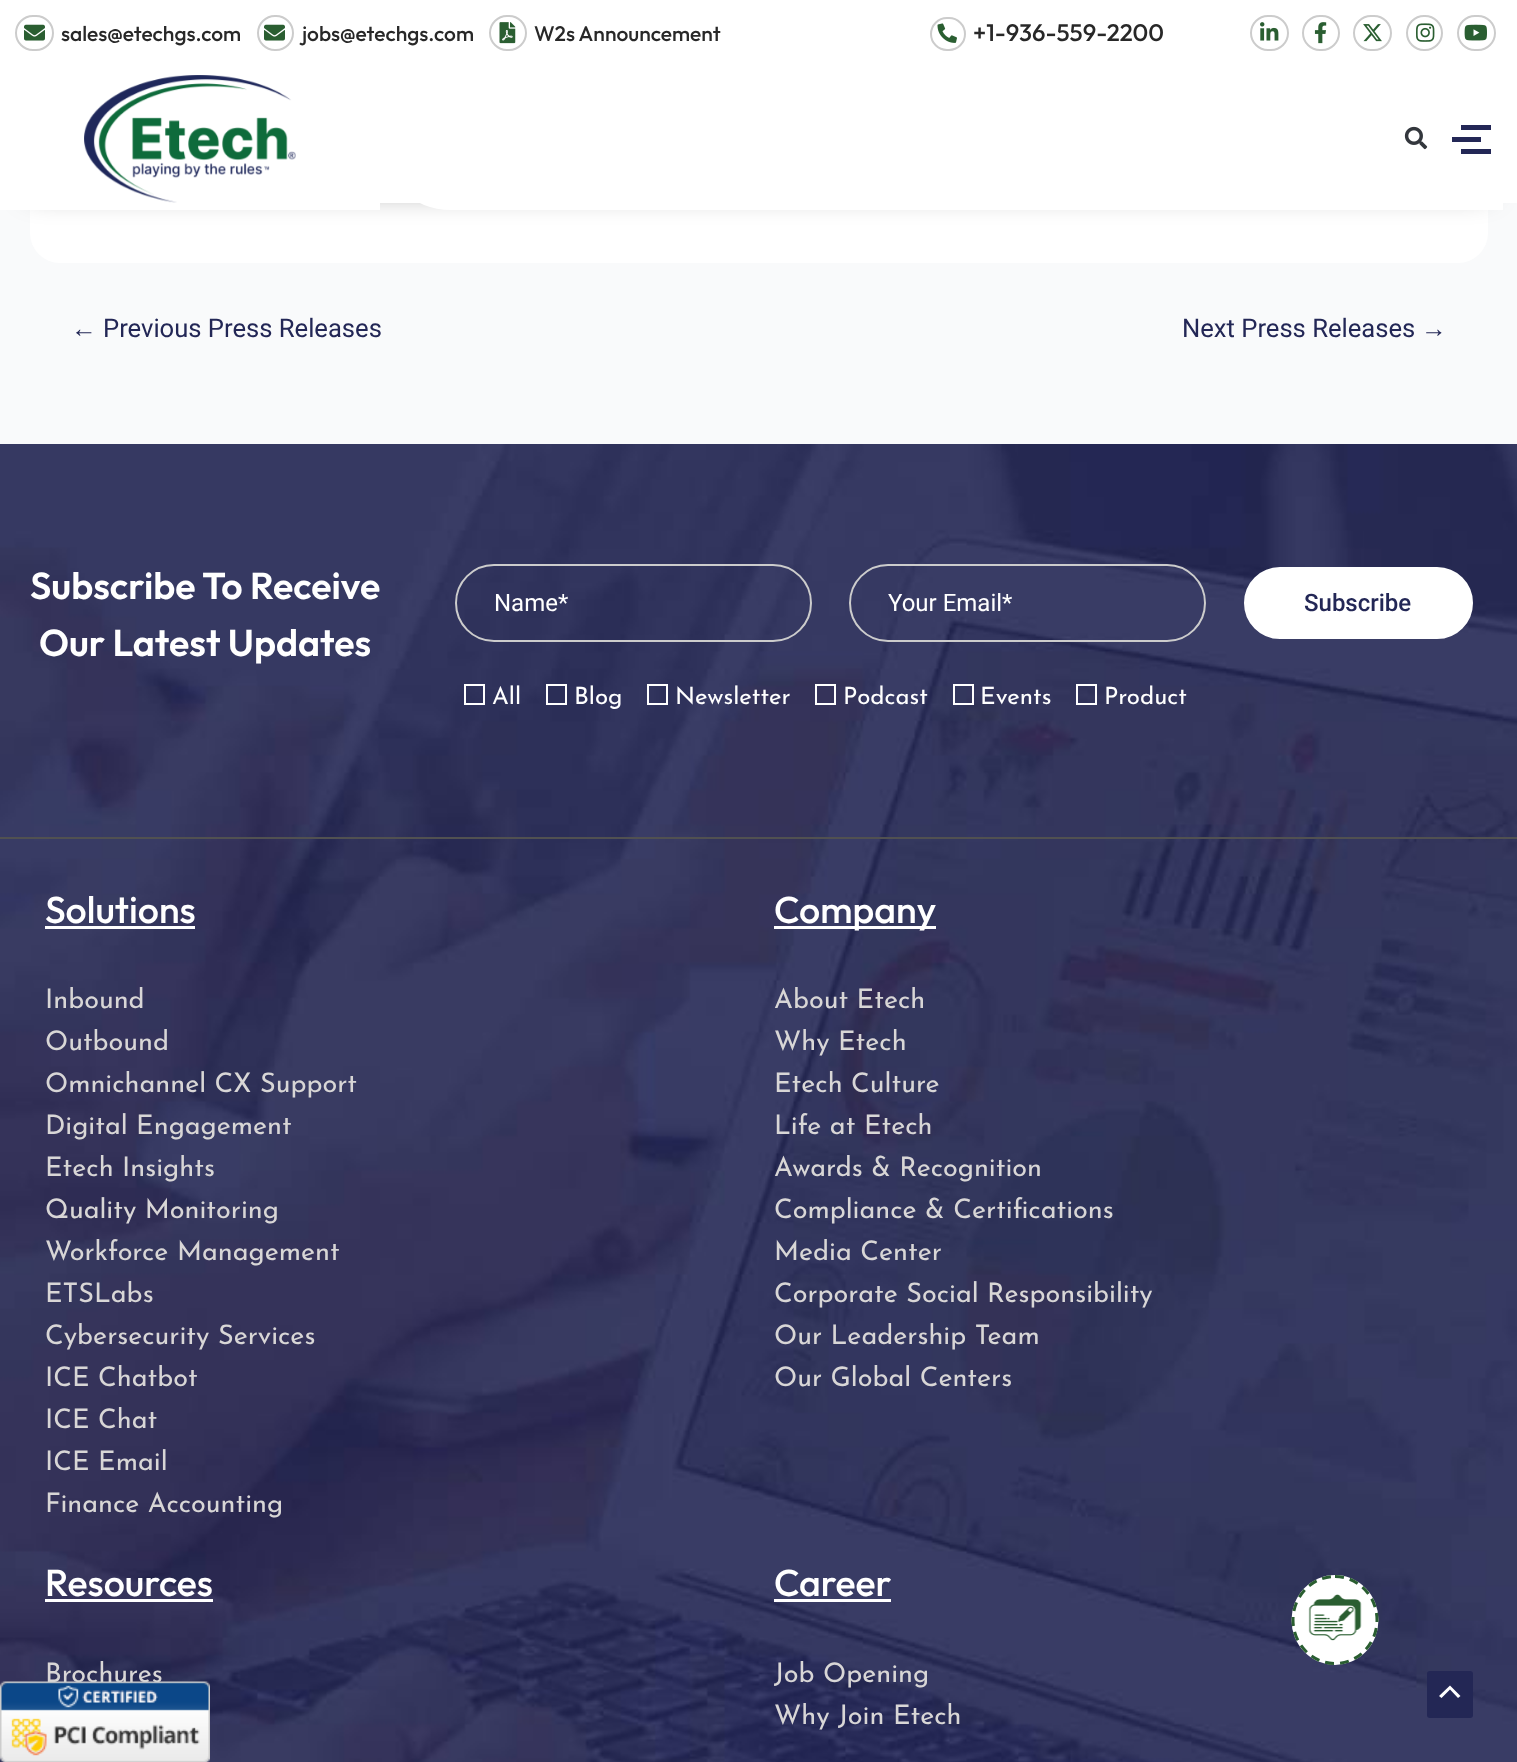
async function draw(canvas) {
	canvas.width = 1517;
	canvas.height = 1762;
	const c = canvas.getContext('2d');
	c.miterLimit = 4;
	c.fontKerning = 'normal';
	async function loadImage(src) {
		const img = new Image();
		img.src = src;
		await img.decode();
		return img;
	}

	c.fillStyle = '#f9fafb';
	c.fillRect(0, 0, 1517, 1762);
	c.fillStyle = '#fff';
	c.beginPath();
	c.roundRect(30, -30, 1458, 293, 30);
	c.fill();
	c.fillStyle = '#00000073';
	c.filter = 'blur(15px)';
	c.beginPath();
	c.rect(30, 48, 1458, 143);
	c.fill();
	c.filter = 'none';
	c.fillStyle = '#fff';
	c.fillRect(0, 0, 1517, 203);
	c.beginPath();
	c.roundRect(16, 16, 37, 34, 17);
	c.strokeStyle = '#ccc';
	c.lineWidth = 2;
	c.stroke();
	c.drawImage(await loadImage('img1.png'), 24, 24, 21, 17);
	c.font = '100 21px "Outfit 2"';
	c.fillStyle = '#282828';
	c.fillText('sales@etechgs.com', 61, 41);
	c.beginPath();
	c.roundRect(258, 16, 35, 34, 17);
	c.stroke();
	c.drawImage(await loadImage('img1.png'), 264, 24, 21, 17);
	c.fillText('jobs@etechgs.com', 302, 41);
	c.beginPath();
	c.roundRect(490, 16, 36, 34, 17);
	c.stroke();
	c.drawImage(await loadImage('img2.png'), 499, 22, 17, 22);
	c.fillText('W2s Announcement', 534, 41);
	c.beginPath();
	c.roundRect(931, 18, 34, 32, 16);
	c.stroke();
	c.drawImage(await loadImage('img3.png'), 937, 23, 20, 20);
	c.font = '100 24px "Outfit 2"';
	c.fillText('+1-936-559-2200', 973, 41);
	c.beginPath();
	c.roundRect(1251, 16, 37, 34, 17);
	c.stroke();
	c.drawImage(await loadImage('img4.png'), 1260, 22, 19, 19);
	c.beginPath();
	c.roundRect(1303, 16, 36, 34, 17);
	c.stroke();
	c.drawImage(await loadImage('img5.png'), 1314, 22, 13, 22);
	c.beginPath();
	c.roundRect(1354, 16, 37, 34, 17);
	c.stroke();
	c.drawImage(await loadImage('img6.png'), 1363, 24, 19, 18);
	c.beginPath();
	c.roundRect(1407, 16, 35, 34, 17);
	c.stroke();
	c.drawImage(await loadImage('img7.png'), 1416, 23, 19, 19);
	c.beginPath();
	c.roundRect(1458, 16, 37, 34, 17);
	c.stroke();
	c.drawImage(await loadImage('img8.png'), 1464, 24, 23, 17);
	c.fillStyle = '#fff';
	c.fillRect(0, 203, 380, 7);
	c.drawImage(await loadImage('img9.png'), 84, 75, 212, 128);
	c.beginPath();
	c.roundRect(381, 69, 1121, 140, [70, 0, 0, 70]);
	c.fill();
	c.strokeStyle = '#fff';
	c.stroke();
	c.drawImage(await loadImage('img10.png'), 1404, 126, 24, 24);
	for (const [x, y, w, h, color] of [
		[1461, 125, 30, 5, '#232756'],
		[1452, 137, 29, 5, '#232756'],
		[1461, 149, 30, 5, '#232756'],
	]) {
		c.fillStyle = color;
		c.fillRect(x, y, w, h);
	}
	c.font = '25.6px Liberation Sans';
	c.fillText('←', 71, 337);
	c.font = '25.6px Roboto';
	c.fillText('Previous Press Releases', 103, 337);
	c.fillText('Next Press Releases', 1182, 337);
	c.font = '25.6px Liberation Sans';
	c.fillText('→', 1421, 337);
	c.drawImage(await loadImage('img11.png'), 0, 444, 1517, 1318);
	c.font = '100 37.5px Outfit';
	c.fillStyle = '#fff';
	c.fillText('Subscribe To Receive', 30, 599);
	c.fillText('Our Latest Updates', 39, 656);
	c.beginPath();
	c.roundRect(456, 565, 355, 76, 38);
	c.strokeStyle = '#ccc';
	c.stroke();
	c.font = '24px Roboto';
	c.fillText('Name*', 494, 611);
	c.beginPath();
	c.roundRect(850, 565, 355, 76, 38);
	c.stroke();
	c.fillText('Your Email*', 888, 611);
	c.beginPath();
	c.roundRect(1245, 568, 227, 70, 35);
	c.fill();
	c.strokeStyle = '#fff';
	c.stroke();
	c.font = '500 24px Roboto';
	c.fillStyle = '#232756';
	c.fillText('Subscribe', 1304, 611);
	c.strokeRect(465, 685, 19, 19);
	c.font = '100 24px Josefin Sans';
	c.fillStyle = '#fff';
	c.fillText('All', 492, 704);
	c.strokeRect(547, 685, 19, 19);
	c.fillText('Blog', 574, 704);
	c.strokeRect(648, 685, 19, 19);
	c.fillText('Newsletter', 675, 704);
	c.strokeRect(816, 685, 19, 19);
	c.fillText('Podcast', 843, 704);
	c.strokeRect(954, 685, 19, 19);
	c.fillText('Events', 980, 704);
	c.strokeRect(1077, 685, 19, 19);
	c.fillText('Product', 1104, 704);
	c.fillStyle = '#515151';
	c.fillRect(0, 837, 1517, 2);
	c.font = '100 37.5px "Outfit 2"';
	c.fillStyle = '#fff';
	c.fillText('Solutions', 45, 923);
	c.fillRect(45, 926, 150, 3);
	c.font = '100 27px Josefin Sans';
	c.fillStyle = '#d8d6d6';
	for (const [text, x, y] of [
		['Inbound', 45, 1008],
		['Outbound', 45, 1050],
		['Omnichannel CX Support', 45, 1092],
		['Digital Engagement', 45, 1134],
		['Etech Insights', 45, 1176],
		['Quality Monitoring', 45, 1218],
		['Workforce Management', 45, 1260],
		['ETSLabs', 45, 1302],
		['Cybersecurity Services', 45, 1344],
		['ICE Chatbot', 45, 1386],
		['ICE Chat', 45, 1428],
		['ICE Email', 45, 1470],
		['Finance Accounting', 45, 1512],
	]) {
		c.fillText(text, x, y);
	}
	c.fillStyle = '#fff';
	c.fillRect(774, 926, 162, 3);
	c.font = '100 37.5px "Outfit 2"';
	c.fillText('Company', 774, 923);
	c.font = '100 27px Josefin Sans';
	c.fillStyle = '#d8d6d6';
	for (const [text, x, y] of [
		['About Etech', 774, 1008],
		['Why Etech', 774, 1050],
		['Etech Culture', 774, 1092],
		['Life at Etech', 774, 1134],
		['Awards & Recognition', 774, 1176],
		['Compliance & Certifications', 774, 1218],
		['Media Center', 774, 1260],
		['Corporate Social Responsibility', 774, 1302],
		['Our Leadership Team', 774, 1344],
		['Our Global Centers', 774, 1386],
	]) {
		c.fillText(text, x, y);
	}
	c.font = '100 37.5px "Outfit 2"';
	c.fillStyle = '#fff';
	c.fillText('Resources', 45, 1596);
	c.fillRect(45, 1599, 168, 3);
	c.font = '100 27px Josefin Sans';
	c.fillStyle = '#d8d6d6';
	c.fillText('Brochures', 45, 1682);
	c.font = '100 37.5px "Outfit 2"';
	c.fillStyle = '#fff';
	c.fillText('Career', 774, 1596);
	c.fillRect(774, 1599, 117, 3);
	c.font = '100 27px Josefin Sans';
	c.fillStyle = '#d8d6d6';
	c.fillText('Job Opening', 774, 1682);
	c.fillText('Why Join Etech', 774, 1724);
	c.fillStyle = '#fff';
	c.beginPath();
	c.ellipse(1335, 1620, 43.5, 45, 0, 0, 2 * Math.PI);
	c.fill();
	c.beginPath();
	c.moveTo(1335, 1576.5);
	c.bezierCurveTo(1358, 1576.5, 1377, 1596, 1377, 1620);
	c.bezierCurveTo(1377, 1644, 1358, 1663.5, 1335, 1663.5);
	c.bezierCurveTo(1312, 1663.5, 1293, 1644, 1293, 1620);
	c.bezierCurveTo(1293, 1596, 1312, 1576.5, 1335, 1576.5);
	c.closePath();
	c.strokeStyle = '#2a5e31';
	c.lineWidth = 3;
	c.setLineDash([9, 6]);
	c.stroke();
	c.drawImage(await loadImage('img12.png'), 1308, 1594, 54, 47);
	c.fillStyle = '#232755';
	c.beginPath();
	c.roundRect(1427, 1671, 46, 47, 3);
	c.fill();
	c.fillStyle = '#fff';
	c.beginPath();
	c.moveTo(1460.5, 1696);
	c.lineTo(1450, 1685.5);
	c.lineTo(1439, 1696);
	c.lineTo(1441.5, 1698);
	c.lineTo(1450, 1689.5);
	c.lineTo(1458, 1698);
	c.closePath();
	c.fill();
	c.drawImage(await loadImage('img13.png'), 0, 1681, 210, 81);
}

draw(document.querySelector('canvas'));
